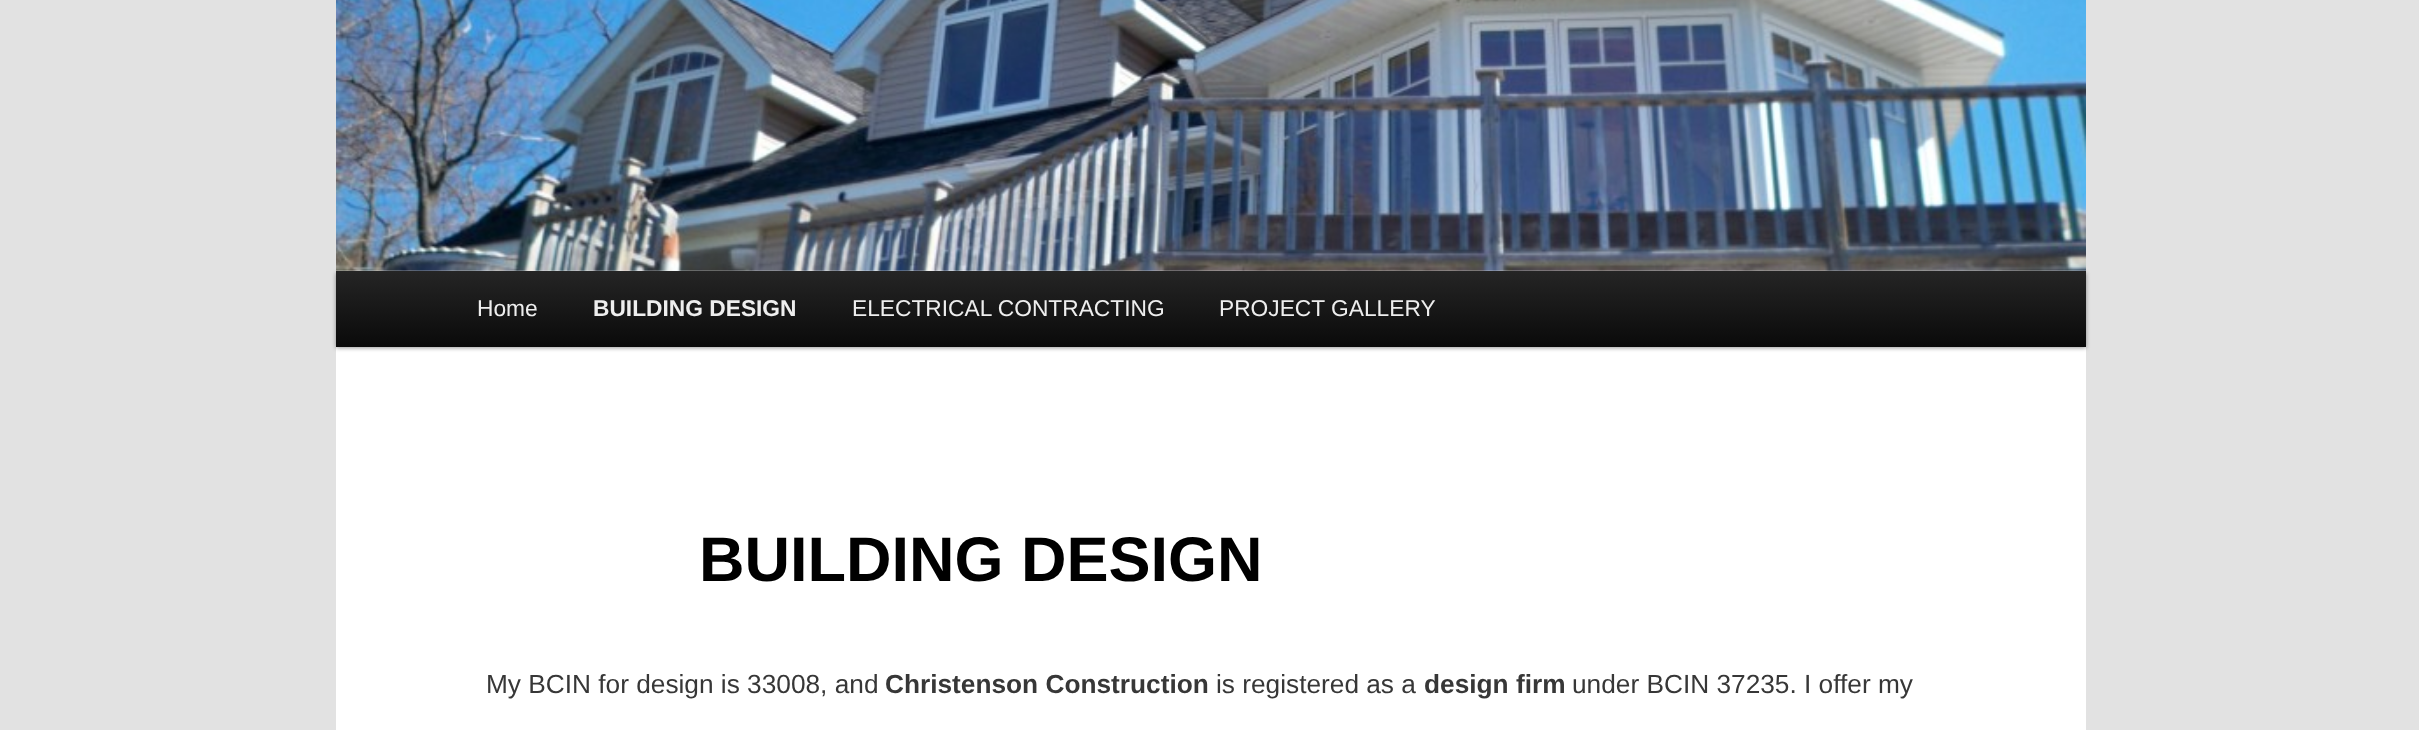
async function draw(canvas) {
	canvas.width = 2419;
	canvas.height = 730;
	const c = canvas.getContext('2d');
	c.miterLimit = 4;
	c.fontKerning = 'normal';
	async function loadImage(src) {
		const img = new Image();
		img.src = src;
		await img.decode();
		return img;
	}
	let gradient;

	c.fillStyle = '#e2e2e2';
	c.fillRect(0, 0, 2419, 730);
	c.fillStyle = '#fff';
	c.fillRect(336, 270, 1750, 460);
	c.fillStyle = '#00000066';
	c.filter = 'blur(2px)';
	c.beginPath();
	c.rect(336, 273, 1750, 75);
	c.fill();
	c.filter = 'none';
	c.drawImage(await loadImage('img1.png'), 336, 0, 1750, 271);
	gradient = c.createLinearGradient(1211, 271, 1211, 347);
	gradient.addColorStop(0, '#252525');
	gradient.addColorStop(1, '#0a0a0a');
	c.fillStyle = gradient;
	c.fillRect(336, 271, 1750, 76);
	c.font = '22.75px Liberation Sans';
	c.fillStyle = '#eee';
	c.fillText('Home', 477, 316);
	c.font = 'bold 22.75px Liberation Sans';
	c.fillText('BUILDING DESIGN', 593, 316);
	c.font = '22.75px Liberation Sans';
	c.fillText('ELECTRICAL CONTRACTING', 852, 316);
	c.fillText('PROJECT GALLERY', 1219, 316);
	c.font = 'bold 63px Liberation Sans';
	c.fillStyle = '#000';
	c.fillText('BUILDING DESIGN', 699, 581);
	c.font = '26.25px Liberation Sans';
	c.fillStyle = '#373737';
	c.fillText('My BCIN for design is 33008, and', 486, 693);
	c.font = 'bold 26.25px Liberation Sans';
	c.fillText('Christenson Construction', 885, 693);
	c.font = '26.25px Liberation Sans';
	c.fillText('is registered as a', 1216, 693);
	c.font = 'bold 26.25px Liberation Sans';
	c.fillText('design firm', 1424, 693);
	c.font = '26.25px Liberation Sans';
	c.fillText('under BCIN 37235. I offer my', 1572, 693);
}

draw(document.querySelector('canvas'));
